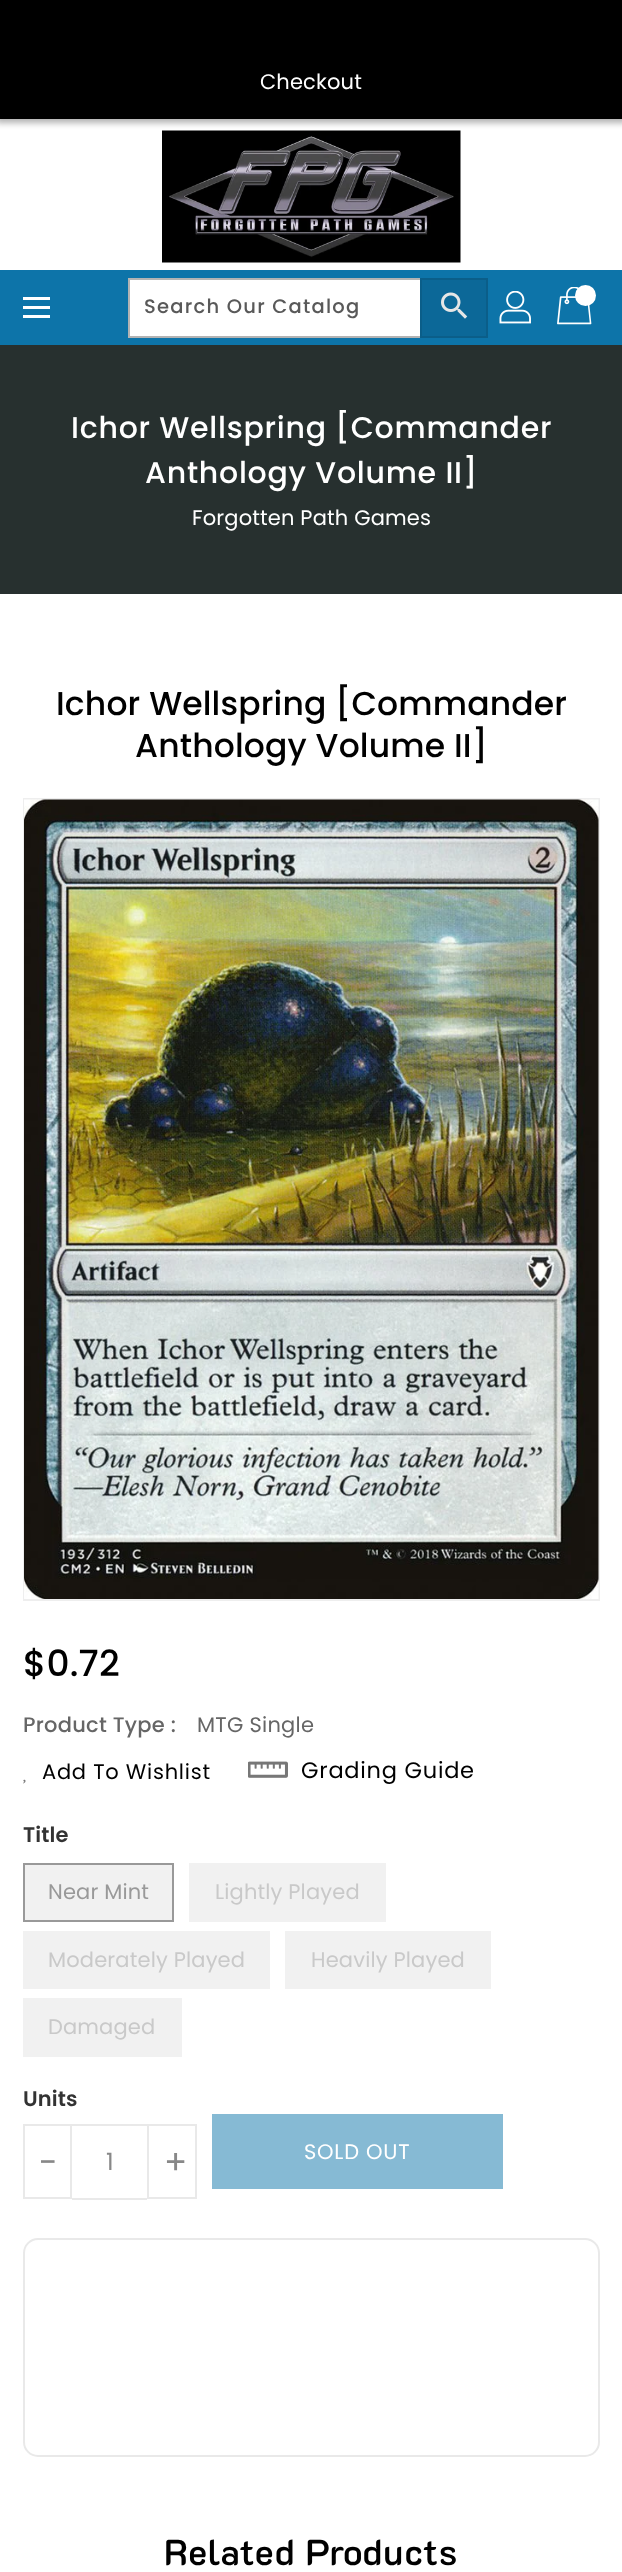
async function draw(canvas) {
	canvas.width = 622;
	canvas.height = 2572;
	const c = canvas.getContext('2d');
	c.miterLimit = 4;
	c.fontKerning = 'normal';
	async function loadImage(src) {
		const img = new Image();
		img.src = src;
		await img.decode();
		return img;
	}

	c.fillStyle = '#fff';
	c.fillRect(0, 0, 622, 2572);
	c.fillStyle = '#0000004d';
	c.filter = 'blur(3px)';
	c.beginPath();
	c.rect(-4, -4, 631, 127);
	c.fill();
	c.filter = 'none';
	c.fillStyle = '#000';
	c.fillRect(0, 0, 622, 119);
	c.letterSpacing = '0.15px';
	c.font = '21px Poppins';
	c.fillStyle = '#fff';
	c.fillText('Checkout', 260, 89);
	c.drawImage(await loadImage('img1.png'), 162, 130, 299, 133);
	for (const [x, y, w, h, color] of [
		[0, 270, 622, 75, '#0d74a9'],
		[23, 297, 27, 3, '#fff'],
		[23, 306, 27, 3, '#fff'],
		[23, 315, 27, 3, '#fff'],
		[130, 280, 290, 56, '#fff'],
	]) {
		c.fillStyle = color;
		c.fillRect(x, y, w, h);
	}
	c.strokeStyle = '#b3b3b3';
	c.lineWidth = 2;
	c.strokeRect(129, 279, 358, 58);
	c.letterSpacing = '1.25px';
	c.font = '500 19.5px Poppins';
	c.fillStyle = '#595959';
	c.fillText('Search Our Catalog', 144, 313);
	c.fillStyle = '#0c6898';
	c.beginPath();
	c.rect(421, 279, 66, 58);
	c.fill();
	c.strokeStyle = '#0b5e89';
	c.stroke();
	c.drawImage(await loadImage('img2.png'), 441, 292, 27, 27);
	c.drawImage(await loadImage('img3.png'), 499, 291, 32, 33);
	c.drawImage(await loadImage('img4.png'), 557, 287, 35, 38);
	c.fillStyle = '#fff';
	c.beginPath();
	c.arc(585.5, 295.5, 10.5, 0, 2 * Math.PI);
	c.fill();
	c.fillStyle = '#27302f';
	c.fillRect(0, 345, 622, 249);
	c.letterSpacing = '0.75px';
	c.font = '500 30px Poppins';
	c.fillStyle = '#fff';
	c.fillText('Ichor Wellspring [Commander', 71, 438);
	c.fillText('Anthology Volume II]', 145, 483);
	c.letterSpacing = '0.15px';
	c.font = '21px Poppins';
	c.fillText('Forgotten Path Games', 192, 525);
	c.font = '500 33px Poppins';
	c.fillStyle = '#000';
	c.fillText('Ichor Wellspring [Commander', 56, 715);
	c.fillText('Anthology Volume II]', 135, 757);
	c.strokeStyle = '#eee';
	c.strokeRect(24, 799, 575, 801);
	c.drawImage(await loadImage('img5.png'), 24, 799, 575, 800);
	c.font = '500 36px Poppins';
	c.fillText('$0.72', 23, 1676);
	c.letterSpacing = '0.25px';
	c.font = '500 21px Poppins';
	c.fillStyle = '#666';
	c.fillText('Product Type :', 23, 1732);
	c.font = '21px Poppins';
	c.fillText('MTG Single', 197, 1732);
	c.letterSpacing = '0.75px';
	c.fillStyle = '#000';
	c.fillText('Add To Wishlist', 42, 1779);
	c.drawImage(await loadImage('img6.png'), 23, 1779, 3, 5);
	c.drawImage(await loadImage('img7.png'), 248, 1761, 40, 17);
	c.font = '22.5px Poppins';
	c.fillText('Grading Guide', 301, 1778);
	c.letterSpacing = '0.15px';
	c.font = '600 21px Poppins';
	c.fillStyle = '#333';
	c.fillText('Title', 23, 1842);
	c.fillStyle = '#f1f1f1';
	c.beginPath();
	c.rect(24, 1864, 149, 57);
	c.fill();
	c.strokeStyle = '#999';
	c.stroke();
	c.font = '21px Poppins';
	c.fillStyle = '#999';
	c.fillText('Near Mint', 48, 1899);
	c.fillStyle = '#f1f1f1';
	c.fillRect(189, 1863, 197, 59);
	c.fillStyle = '#c9c9c9';
	c.fillText('Lightly Played', 215, 1899);
	c.fillStyle = '#f1f1f1';
	c.fillRect(23, 1931, 247, 58);
	c.fillStyle = '#c9c9c9';
	c.fillText('Moderately Played', 48, 1967);
	c.fillStyle = '#f1f1f1';
	c.fillRect(285, 1931, 206, 58);
	c.fillStyle = '#c9c9c9';
	c.fillText('Heavily Played', 311, 1967);
	c.fillStyle = '#f1f1f1';
	c.fillRect(23, 1998, 159, 59);
	c.fillStyle = '#c9c9c9';
	c.fillText('Damaged', 48, 2034);
	c.font = '600 21px Poppins';
	c.fillStyle = '#333';
	c.fillText('Units', 23, 2106);
	c.strokeStyle = '#e9e9e9';
	c.strokeRect(24, 2125, 47, 73);
	c.letterSpacing = '0.75px';
	c.font = '34px Poppins';
	c.fillStyle = '#888';
	c.fillText('-', 39, 2174);
	c.fillStyle = '#e9e9e9';
	c.fillRect(72, 2124, 75, 2);
	c.fillRect(72, 2198, 75, 2);
	c.letterSpacing = '0.15px';
	c.font = '24px Poppins';
	c.fillStyle = '#888';
	c.fillText('1', 106, 2170);
	c.strokeRect(148, 2125, 48, 73);
	c.letterSpacing = '0.75px';
	c.font = '34px Poppins';
	c.fillText('+', 164, 2174);
	c.fillStyle = '#86bad4';
	c.fillRect(212, 2114, 291, 75);
	c.font = '21px Poppins';
	c.fillStyle = '#fff';
	c.fillText('SOLD OUT', 304, 2159);
	c.beginPath();
	c.roundRect(24, 2239, 575, 217, 14);
	c.stroke();
	c.font = '600 36px "K2D"';
	c.fillStyle = '#000';
	c.fillText('Related Products', 164, 2565);
}

draw(document.querySelector('canvas'));
